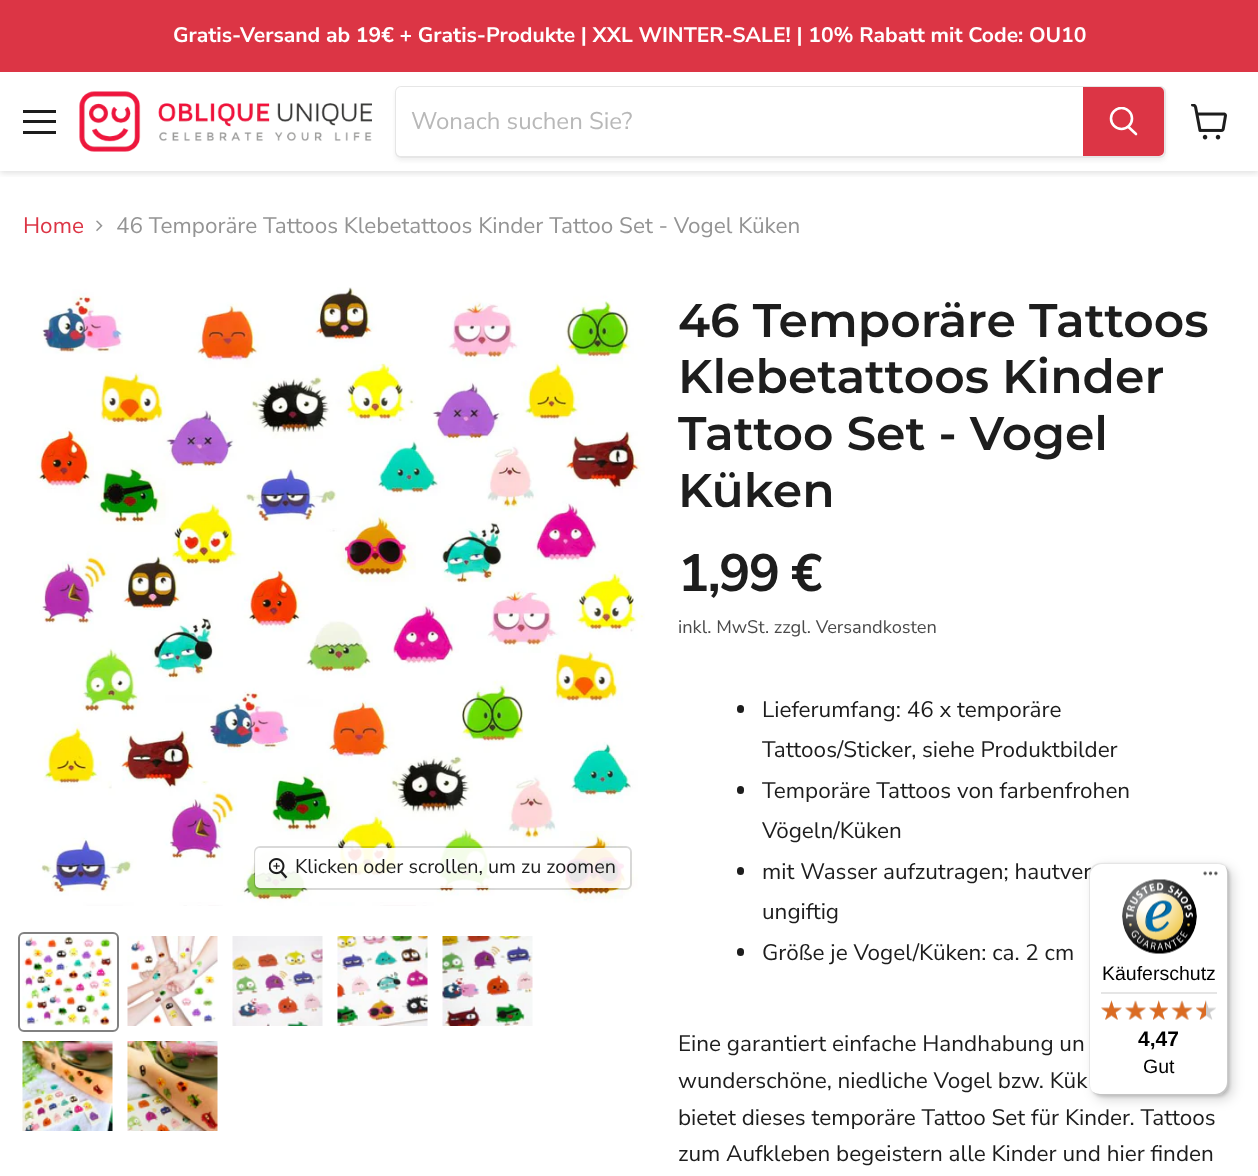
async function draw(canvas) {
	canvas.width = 1258;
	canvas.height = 1176;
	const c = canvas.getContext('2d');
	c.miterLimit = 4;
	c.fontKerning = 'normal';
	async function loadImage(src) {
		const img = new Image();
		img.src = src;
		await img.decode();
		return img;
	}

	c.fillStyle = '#fff';
	c.fillRect(0, 0, 1258, 1176);
	c.save();
	c.beginPath();
	c.rect(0, 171, 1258, 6);
	c.clip();
	c.fillStyle = '#80808040';
	c.filter = 'blur(3px)';
	c.beginPath();
	c.rect(0, 74, 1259, 99);
	c.fill();
	c.filter = 'none';
	c.restore();
	c.fillStyle = '#dc3545';
	c.fillRect(0, 0, 1258, 72);
	c.font = 'bold 21.1px Nunito Sans';
	c.fillStyle = '#fff';
	c.fillText('Gratis-Versand ab 19€ + Gratis-Produkte | XXL WINTER-SALE! | 10% Rabatt mit Code: OU10', 173, 42);
	for (const [x, y, w, h, color] of [
		[23, 110, 33, 3, '#1d1d1d'],
		[23, 120, 33, 3, '#1d1d1d'],
		[23, 131, 33, 3, '#1d1d1d'],
	]) {
		c.fillStyle = color;
		c.fillRect(x, y, w, h);
	}
	c.drawImage(await loadImage('img1.png'), 79, 91, 293, 61);
	c.save();
	c.beginPath();
	c.moveTo(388, 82);
	c.lineTo(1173, 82);
	c.lineTo(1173, 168);
	c.lineTo(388, 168);
	c.closePath();
	c.moveTo(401, 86);
	c.lineTo(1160, 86);
	c.bezierCurveTo(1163.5, 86, 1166, 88.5, 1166, 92);
	c.lineTo(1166, 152);
	c.bezierCurveTo(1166, 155.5, 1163.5, 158, 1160, 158);
	c.lineTo(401, 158);
	c.bezierCurveTo(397.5, 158, 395, 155.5, 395, 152);
	c.lineTo(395, 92);
	c.bezierCurveTo(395, 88.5, 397.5, 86, 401, 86);
	c.closePath();
	c.clip('evenodd');
	c.fillStyle = '#8080801c';
	c.filter = 'blur(2px)';
	c.beginPath();
	c.roundRect(395, 89, 771, 72, 6);
	c.fill();
	c.filter = 'none';
	c.restore();
	c.beginPath();
	c.roundRect(396, 87, 769, 70, 5);
	c.strokeStyle = '#80808033';
	c.lineWidth = 2;
	c.stroke();
	c.fillStyle = '#fff';
	c.beginPath();
	c.roundRect(396, 87, 687, 69, [5, 0, 0, 5]);
	c.fill();
	c.font = '24px Nunito Sans';
	c.fillStyle = '#b8b8b8';
	c.fillText('Wonach suchen Sie?', 411, 129);
	c.fillStyle = '#dc3545';
	c.beginPath();
	c.roundRect(1084, 88, 79, 67, [0, 4, 4, 0]);
	c.fill();
	c.strokeStyle = '#dc3545';
	c.stroke();
	c.beginPath();
	c.moveTo(1136, 134);
	c.lineTo(1128.5, 127);
	c.strokeStyle = '#fff';
	c.lineWidth = 2.6;
	c.lineCap = 'round';
	c.stroke();
	c.save();
	c.beginPath();
	c.rect(1109, 107, 30, 31);
	c.clip();
	c.beginPath();
	c.arc(1121.5, 118.5, 10.5, 0, 2 * Math.PI);
	c.stroke();
	c.restore();
	c.drawImage(await loadImage('img2.png'), 1191, 104, 36, 36);
	c.font = '22.5px Nunito Sans';
	c.fillText('Home', 23, 233);
	c.drawImage(await loadImage('img3.png'), 96, 220, 7, 12);
	c.fillStyle = '#949494';
	c.fillText('46 Temporäre Tattoos Klebetattoos Kinder Tattoo Set - Vogel Küken', 116, 233);
	c.drawImage(await loadImage('img4.png'), 35, 287, 610, 619);
	c.beginPath();
	c.roundRect(255, 847, 376, 42, 5);
	c.strokeStyle = '#00000026';
	c.lineWidth = 2;
	c.stroke();
	c.fillStyle = '#ffffffe6';
	c.beginPath();
	c.roundRect(255, 848, 375, 40, 5);
	c.fill();
	c.drawImage(await loadImage('img5.png'), 269, 858, 19, 21);
	c.font = '19.75px Nunito Sans';
	c.fillStyle = '#1d1d1d';
	c.fillText('Klicken oder scrollen, um zu zoomen', 295, 873);
	c.beginPath();
	c.roundRect(19, 933, 99, 98, 5);
	c.strokeStyle = '#818181';
	c.stroke();
	c.drawImage(await loadImage('img6.png'), 22, 936, 91, 90);
	c.drawImage(await loadImage('img7.png'), 127, 936, 91, 90);
	c.drawImage(await loadImage('img8.png'), 232, 936, 91, 90);
	c.drawImage(await loadImage('img9.png'), 337, 936, 91, 90);
	c.drawImage(await loadImage('img10.png'), 442, 936, 91, 90);
	c.drawImage(await loadImage('img11.png'), 22, 1041, 91, 90);
	c.drawImage(await loadImage('img12.png'), 127, 1041, 91, 90);
	c.font = '600 47.25px Montserrat';
	for (const [text, x, y] of [
		['46 Temporäre Tattoos', 678, 337],
		['Klebetattoos Kinder', 678, 393],
		['Tattoo Set - Vogel', 678, 450],
		['Küken', 678, 507],
	]) {
		c.fillText(text, x, y);
	}
	c.letterSpacing = '-1.75px';
	c.font = 'bold 52.5px Nunito Sans';
	c.fillText('1,99 €', 678, 591);
	c.letterSpacing = '0px';
	c.font = '18.25px Nunito Sans';
	c.fillStyle = '#4a4a4a';
	c.fillText('inkl. MwSt. zzgl. Versandkosten', 678, 633);
	c.fillStyle = '#1d1d1d';
	c.beginPath();
	c.roundRect(737, 705, 7, 8, 3.5);
	c.fill();
	c.font = '22.5px Nunito Sans';
	c.fillText('Lieferumfang: 46 x temporäre', 762, 717);
	c.fillText('Tattoos/Sticker, siehe Produktbilder', 762, 757);
	c.beginPath();
	c.roundRect(737, 786, 7, 8, 3.5);
	c.fill();
	c.fillText('Temporäre Tattoos von farbenfrohen', 762, 798);
	c.fillText('Vögeln/Küken', 762, 838);
	c.beginPath();
	c.roundRect(737, 867, 7, 8, 3.5);
	c.fill();
	c.fillText('mit Wasser aufzutragen; hautver', 762, 879);
	c.fillText('ungiftig', 762, 919);
	c.beginPath();
	c.roundRect(737, 948, 7, 8, 3.5);
	c.fill();
	for (const [text, x, y] of [
		['Größe je Vogel/Küken: ca. 2 cm', 762, 960],
		['Eine garantiert einfache Handhabung un', 678, 1051],
		['wunderschöne, niedliche Vogel bzw. Kük', 678, 1088],
		['bietet dieses temporäre Tattoo Set für Kinder. Tattoos', 678, 1125],
		['zum Aufkleben begeistern alle Kinder und hier finden', 678, 1161],
	]) {
		c.fillText(text, x, y);
	}
	c.fillStyle = '#00000026';
	c.filter = 'blur(6px)';
	c.beginPath();
	c.roundRect(1094, 867, 139, 233, 12);
	c.fill();
	c.filter = 'none';
	c.filter = 'blur(1.5px)';
	c.beginPath();
	c.roundRect(1091, 864, 139, 233, 12);
	c.fill();
	c.filter = 'none';
	c.fillStyle = '#fff';
	c.beginPath();
	c.roundRect(1089, 863, 140, 232, 12);
	c.fill();
	c.fillStyle = '#0000001a';
	c.beginPath();
	c.moveTo(1102, 864);
	c.lineTo(1218, 864);
	c.bezierCurveTo(1221, 864, 1223, 865, 1225, 866);
	c.bezierCurveTo(1223, 864, 1220, 863, 1217, 863);
	c.lineTo(1101, 863);
	c.bezierCurveTo(1094, 863, 1089, 868, 1089, 875);
	c.lineTo(1089, 1083);
	c.bezierCurveTo(1089, 1087, 1091, 1090, 1093, 1092);
	c.bezierCurveTo(1091, 1090, 1090, 1087, 1090, 1084);
	c.lineTo(1090, 876);
	c.bezierCurveTo(1090, 869, 1096, 864, 1102, 864);
	c.closePath();
	c.fill();
	c.fillStyle = '#00000033';
	c.beginPath();
	c.moveTo(1092, 1091);
	c.bezierCurveTo(1094, 1093, 1097, 1095, 1101, 1095);
	c.lineTo(1217, 1095);
	c.bezierCurveTo(1224, 1095, 1229, 1090, 1229, 1083);
	c.lineTo(1229, 875);
	c.bezierCurveTo(1229, 871, 1227, 868, 1225, 866);
	c.bezierCurveTo(1226, 868, 1227, 870, 1227, 873);
	c.lineTo(1227, 1082);
	c.bezierCurveTo(1227, 1088, 1222, 1094, 1215, 1094);
	c.lineTo(1100, 1094);
	c.bezierCurveTo(1097, 1094, 1094, 1093, 1092, 1091);
	c.closePath();
	c.fill();
	c.fillStyle = '#32323233';
	c.beginPath();
	c.moveTo(1093, 1092);
	c.bezierCurveTo(1095, 1094, 1098, 1095, 1101, 1095);
	c.lineTo(1217, 1095);
	c.bezierCurveTo(1224, 1095, 1229, 1090, 1229, 1083);
	c.lineTo(1229, 875);
	c.bezierCurveTo(1229, 871, 1227, 868, 1225, 866);
	c.bezierCurveTo(1227, 868, 1228, 871, 1228, 874);
	c.lineTo(1228, 1082);
	c.bezierCurveTo(1228, 1089, 1222, 1094, 1216, 1094);
	c.lineTo(1100, 1094);
	c.bezierCurveTo(1097, 1094, 1095, 1093, 1093, 1092);
	c.closePath();
	c.fill();
	c.fillStyle = '#ffffff4d';
	c.beginPath();
	c.moveTo(1092, 1091);
	c.bezierCurveTo(1094, 1093, 1097, 1095, 1101, 1095);
	c.lineTo(1217, 1095);
	c.bezierCurveTo(1224, 1095, 1229, 1090, 1229, 1083);
	c.lineTo(1229, 875);
	c.bezierCurveTo(1229, 871, 1227, 868, 1225, 866);
	c.bezierCurveTo(1227, 868, 1228, 871, 1228, 874);
	c.lineTo(1228, 1082);
	c.bezierCurveTo(1228, 1089, 1222, 1094, 1216, 1094);
	c.lineTo(1100, 1094);
	c.bezierCurveTo(1097, 1094, 1094, 1093, 1092, 1091);
	c.closePath();
	c.fill();
	c.drawImage(await loadImage('img13.png'), 1203, 871, 15, 5);
	c.drawImage(await loadImage('img14.png'), 1122, 879, 75, 75);
	c.font = '19.5px Liberation Sans';
	c.fillStyle = '#000';
	c.fillText('Käuferschutz', 1102, 980);
	c.fillStyle = '#e5e5e5';
	c.fillRect(1101, 992, 116, 2);
	c.drawImage(await loadImage('img15.png'), 1101, 1000, 21, 20);
	c.drawImage(await loadImage('img16.png'), 1125, 1001, 21, 19);
	c.drawImage(await loadImage('img17.png'), 1149, 1000, 19, 20);
	c.drawImage(await loadImage('img18.png'), 1172, 1001, 20, 19);
	c.drawImage(await loadImage('img19.png'), 1196, 1000, 20, 20);
	c.drawImage(await loadImage('img20.png'), 1101, 1000, 21, 20);
	c.drawImage(await loadImage('img21.png'), 1125, 1000, 21, 20);
	c.drawImage(await loadImage('img22.png'), 1149, 1000, 19, 20);
	c.drawImage(await loadImage('img23.png'), 1171, 1000, 22, 20);
	c.drawImage(await loadImage('img24.png'), 1196, 1000, 10, 20);
	c.font = 'bold 21px Liberation Sans';
	c.fillStyle = '#000';
	c.fillText('4,47', 1138, 1046);
	c.font = '19.5px Liberation Sans';
	c.fillText('Gut', 1143, 1073);
}

draw(document.querySelector('canvas'));
